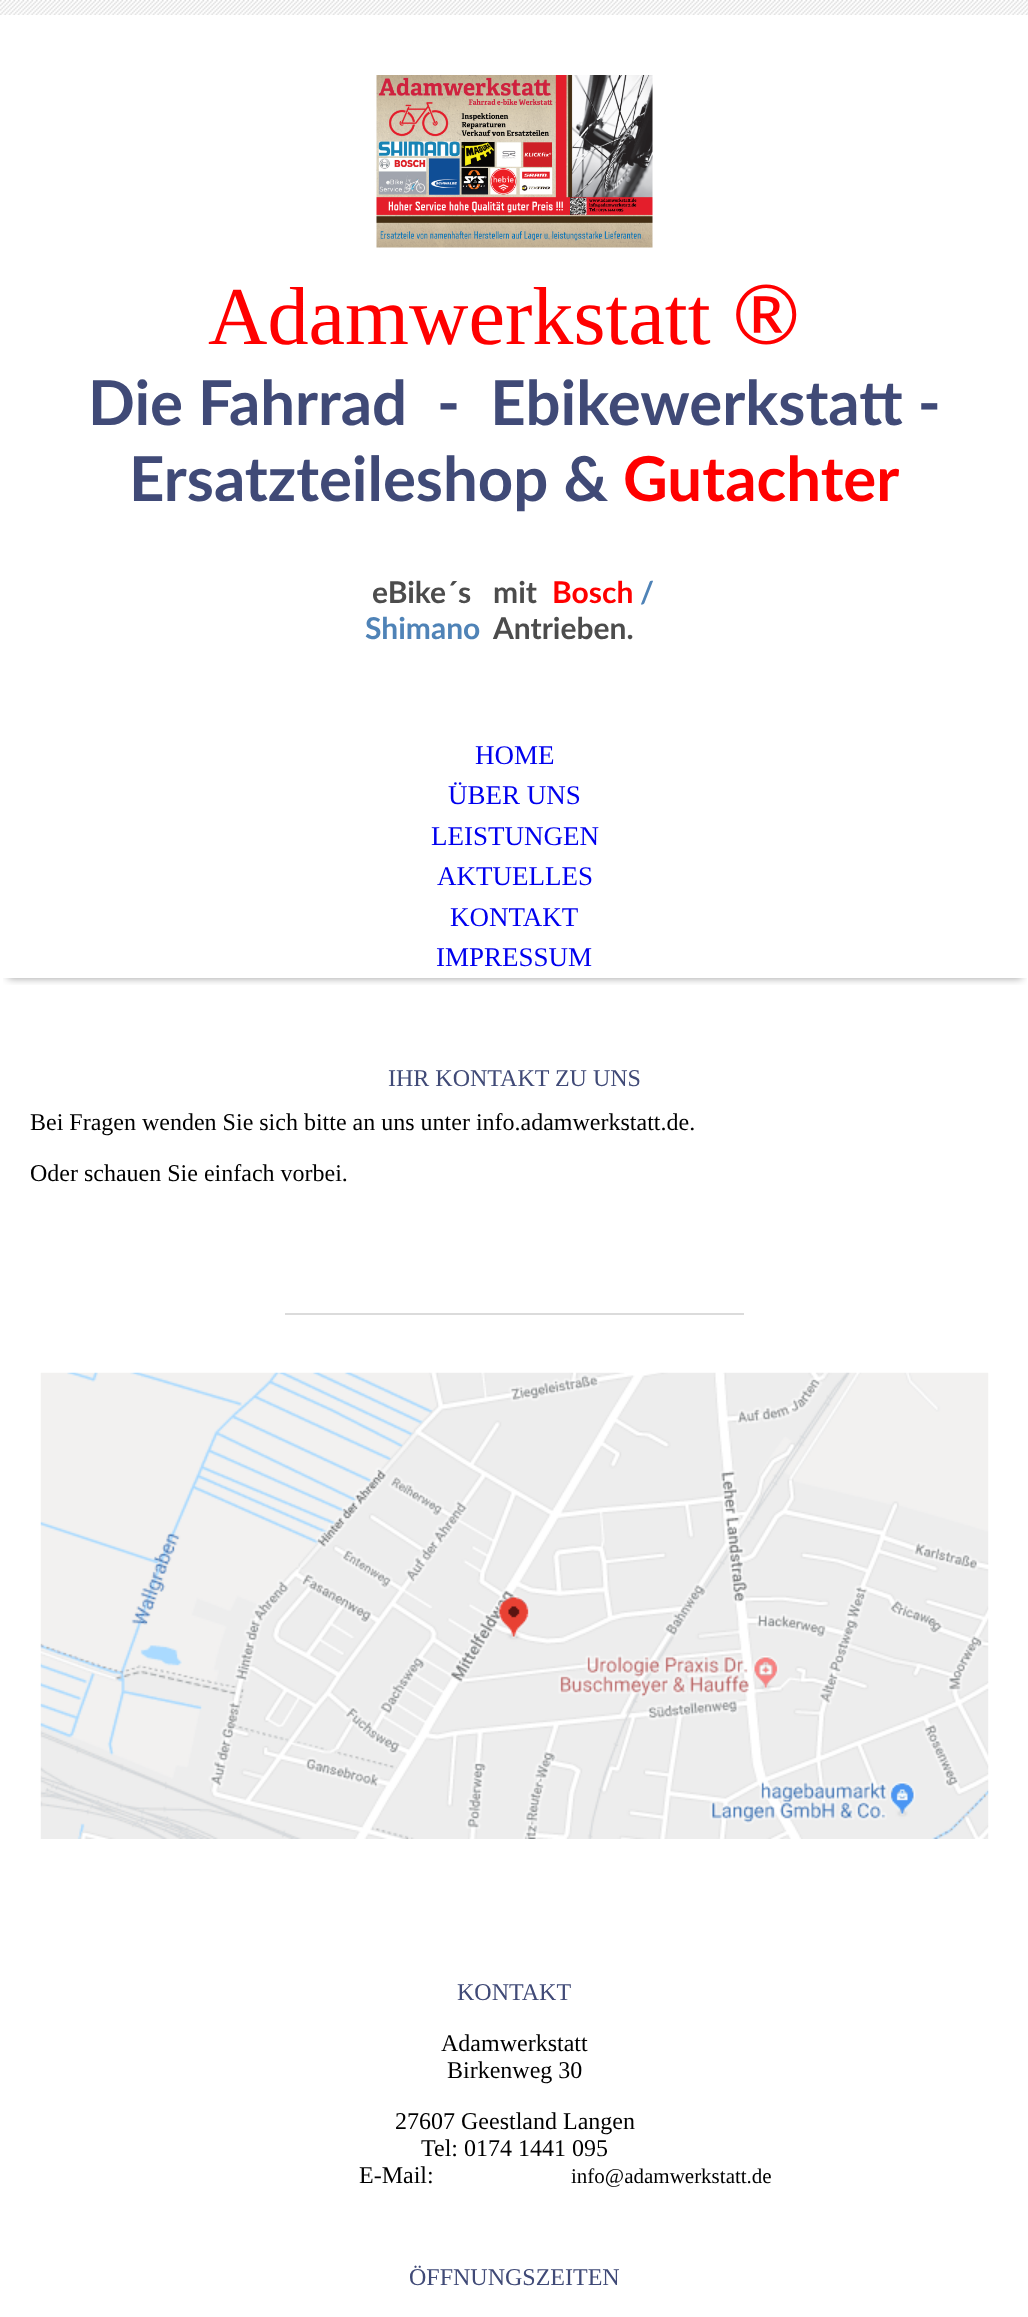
async function draw(canvas) {
	canvas.width = 1028;
	canvas.height = 2317;
	const c = canvas.getContext('2d');
	c.miterLimit = 4;
	c.fontKerning = 'normal';
	async function loadImage(src) {
		const img = new Image();
		img.src = src;
		await img.decode();
		return img;
	}

	c.fillStyle = '#fff';
	c.fillRect(0, 0, 1028, 2317);
	c.drawImage(await loadImage('img1.png'), 0, 0, 1028, 15);
	c.drawImage(await loadImage('img2.png'), 376, 75, 277, 173);
	c.font = '82.25px Liberation Serif';
	c.fillStyle = '#f00';
	c.fillText('Adamwerkstatt', 208, 344);
	c.font = '82.25px Lato';
	c.fillText('®', 732, 344);
	c.font = 'bold 61.75px Lato';
	c.fillStyle = '#404a77';
	c.fillText('Die Fahrrad  -  Ebikewerkstatt -', 88, 425);
	c.fillText('Ersatzteileshop &', 129, 501);
	c.fillStyle = '#f00';
	c.fillText('Gutachter', 623, 501);
	c.font = 'bold 30px Lato';
	c.fillStyle = '#4c4c4c';
	c.fillText('eBike´s   mit', 372, 603);
	c.fillStyle = '#f00';
	c.fillText('Bosch', 552, 603);
	c.fillStyle = '#4f83b7';
	c.fillText('/', 640, 603);
	c.fillText('Shimano', 365, 639);
	c.fillStyle = '#4c4c4c';
	c.fillText('Antrieben.', 493, 639);
	c.save();
	c.beginPath();
	c.rect(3, 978, 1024, 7);
	c.clip();
	c.fillStyle = '#00000066';
	c.filter = 'blur(4px)';
	c.beginPath();
	c.rect(8, 720, 1014, 258);
	c.fill();
	c.filter = 'none';
	c.restore();
	c.font = '27px Liberation Serif';
	c.fillStyle = '#00e';
	for (const [text, x, y] of [
		['HOME', 475, 764],
		['ÜBER UNS', 448, 804],
		['LEISTUNGEN', 431, 845],
		['AKTUELLES', 437, 885],
		['KONTAKT', 450, 926],
		['IMPRESSUM', 436, 966],
	]) {
		c.fillText(text, x, y);
	}
	c.font = '24px Liberation Serif';
	c.fillStyle = '#404a77';
	c.fillText('IHR KONTAKT ZU UNS', 388, 1086);
	c.fillStyle = '#000';
	c.fillText('Bei Fragen wenden Sie sich bitte an uns unter info.adamwerkstatt.de.', 30, 1130);
	c.fillText('Oder schauen Sie einfach vorbei.', 30, 1181);
	c.fillStyle = '#dbdbdb';
	c.fillRect(285, 1313, 459, 2);
	c.drawImage(await loadImage('img3.png'), 40, 1372, 949, 467);
	c.fillStyle = '#404a77';
	c.fillText('KONTAKT', 457, 2000);
	c.fillStyle = '#000';
	for (const [text, x, y] of [
		['Adamwerkstatt', 441, 2051],
		['Birkenweg 30', 447, 2078],
		['27607 Geestland Langen', 395, 2129],
		['Tel: 0174 1441 095', 421, 2156],
		['E-Mail:', 359, 2183],
	]) {
		c.fillText(text, x, y);
	}
	c.font = '21px Liberation Serif';
	c.fillText('info@adamwerkstatt.de', 571, 2183);
	c.font = '24px Liberation Serif';
	c.fillStyle = '#404a77';
	c.fillText('ÖFFNUNGSZEITEN', 409, 2285);
}

draw(document.querySelector('canvas'));
